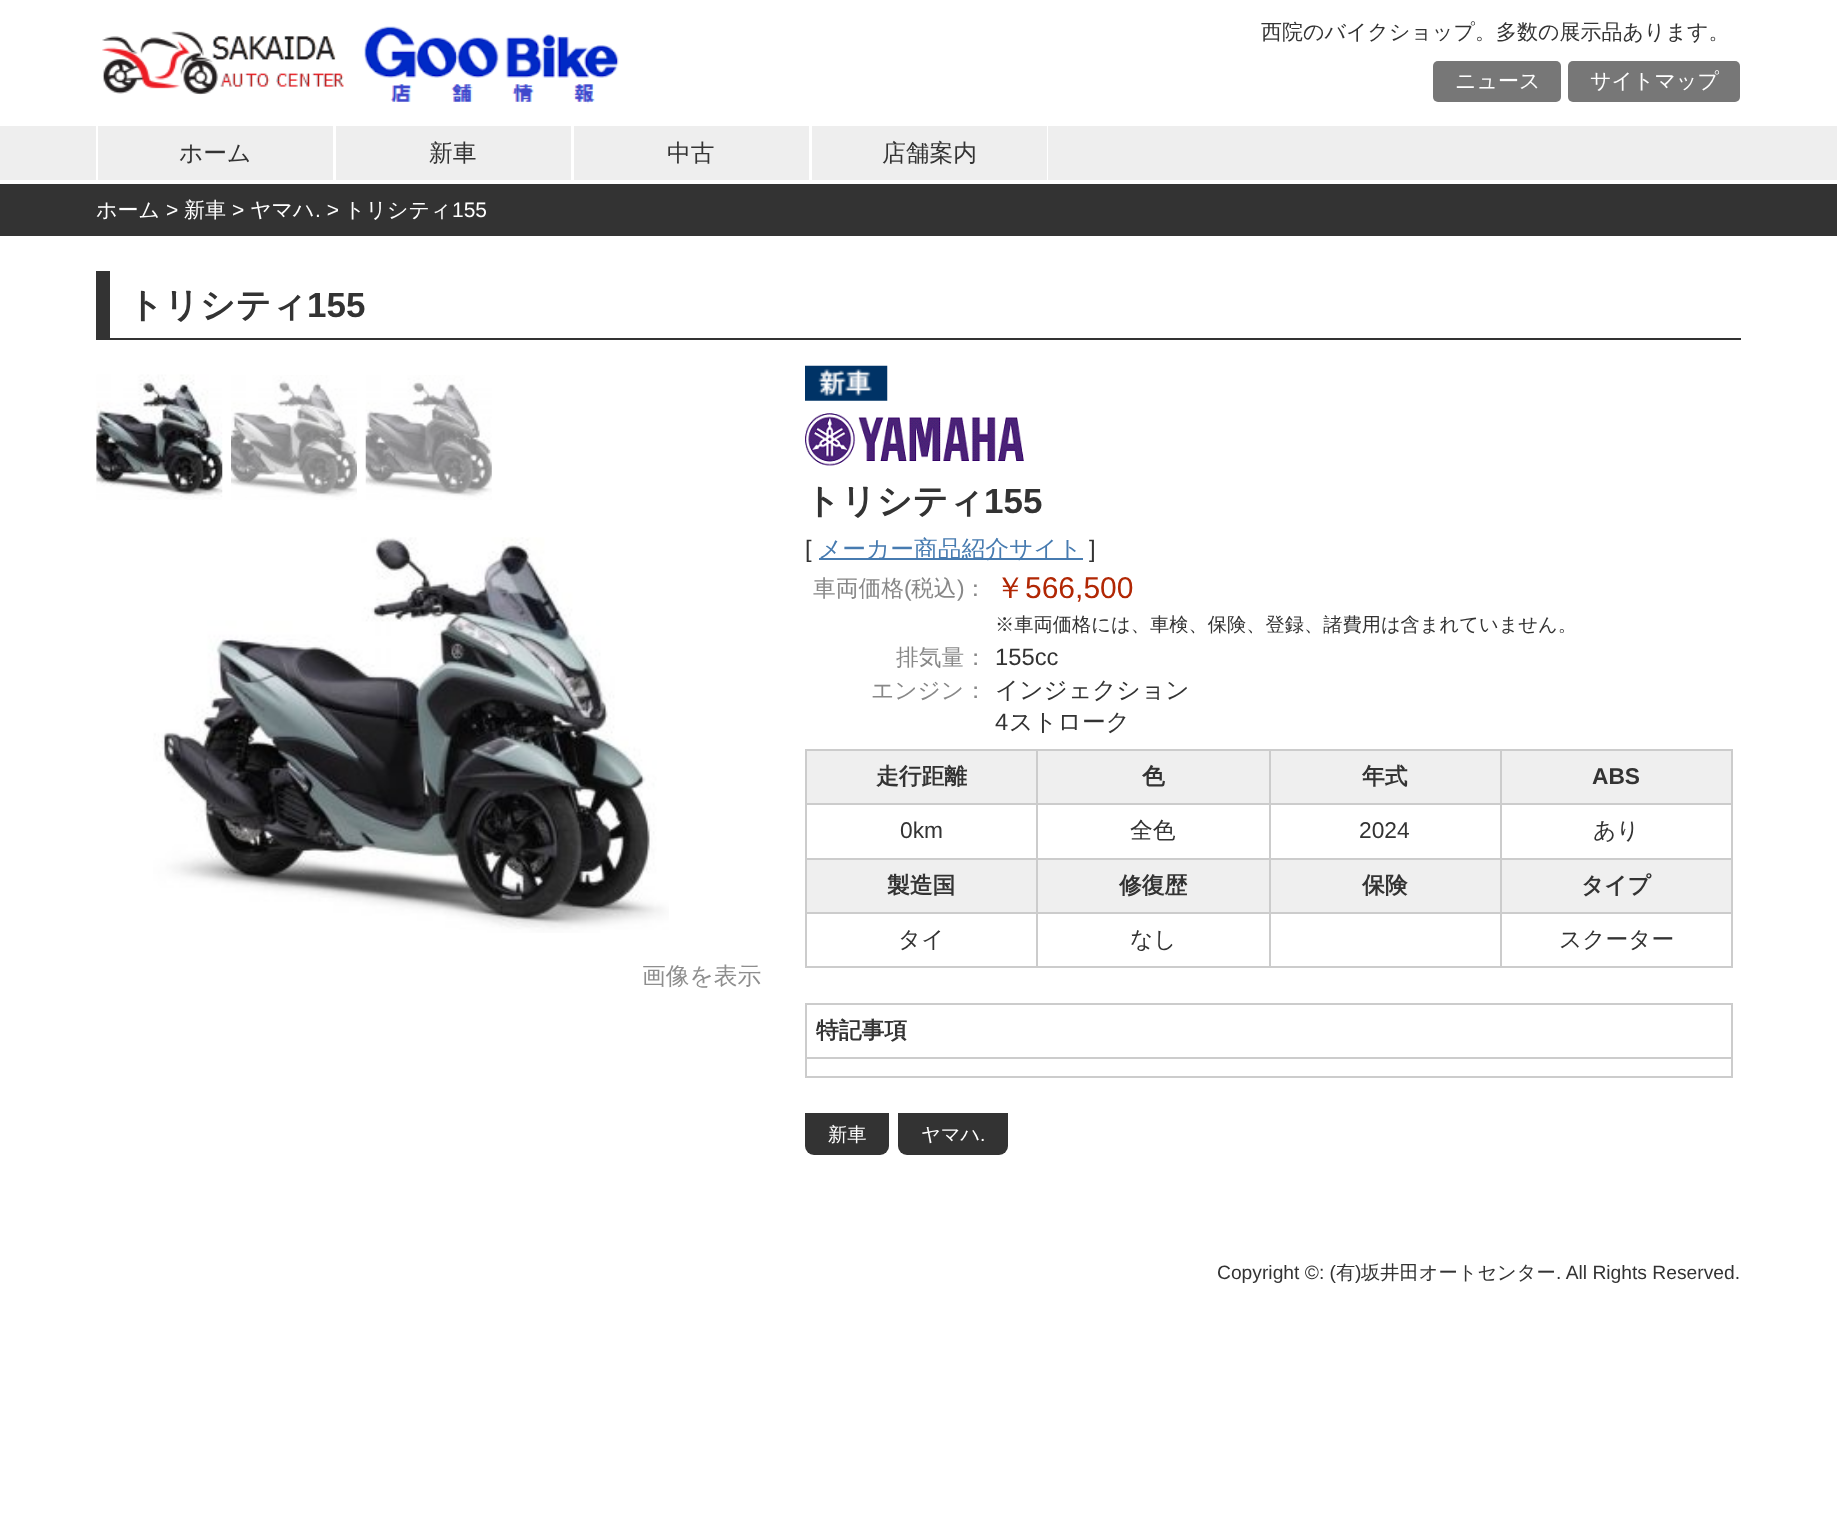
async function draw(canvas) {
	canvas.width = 1837;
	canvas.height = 1535;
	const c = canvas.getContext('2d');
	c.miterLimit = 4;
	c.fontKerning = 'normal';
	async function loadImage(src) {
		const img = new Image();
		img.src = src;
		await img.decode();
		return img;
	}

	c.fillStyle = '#fff';
	c.fillRect(0, 0, 1837, 1535);
	c.drawImage(await loadImage('img1.png'), 102, 31, 242, 64);
	c.drawImage(await loadImage('img2.png'), 364, 26, 255, 78);
	c.font = '500 21px WenQuanYi Zen Hei';
	c.fillStyle = '#333';
	c.fillText('西院のバイクショップ。多数の展示品あります。', 1261, 39);
	c.fillStyle = '#777';
	c.beginPath();
	c.roundRect(1433, 61, 128, 41, 5);
	c.fill();
	c.fillStyle = '#fff';
	c.fillText('ニュース', 1455, 88);
	c.fillStyle = '#777';
	c.beginPath();
	c.roundRect(1568, 61, 172, 41, 5);
	c.fill();
	c.fillStyle = '#fff';
	c.fillText('サイトマップ', 1590, 88);
	for (const [x, y, w, h, color] of [
		[0, 126, 1837, 54, '#eee'],
		[96, 126, 952, 54, '#fff'],
		[98, 126, 235, 54, '#eee'],
	]) {
		c.fillStyle = color;
		c.fillRect(x, y, w, h);
	}
	c.font = '500 23.75px WenQuanYi Zen Hei';
	c.fillStyle = '#333';
	c.fillText('ホーム', 179, 161);
	c.fillStyle = '#eee';
	c.fillRect(336, 126, 235, 54);
	c.fillStyle = '#333';
	c.fillText('新車', 429, 161);
	c.fillStyle = '#eee';
	c.fillRect(574, 126, 235, 54);
	c.fillStyle = '#333';
	c.fillText('中古', 667, 161);
	c.fillStyle = '#eee';
	c.fillRect(812, 126, 235, 54);
	c.fillStyle = '#333';
	c.fillText('店舗案内', 882, 161);
	c.fillRect(0, 184, 1837, 52);
	c.font = '500 21px WenQuanYi Zen Hei';
	c.fillStyle = '#fff';
	c.fillText('ホーム', 96, 217);
	c.font = '21px Liberation Sans';
	c.fillText('>', 166, 217);
	c.font = '500 21px WenQuanYi Zen Hei';
	c.fillText('新車', 184, 217);
	c.font = '21px Liberation Sans';
	c.fillText('>', 232, 217);
	c.font = '500 21px WenQuanYi Zen Hei';
	c.fillText('ヤマハ', 250, 217);
	c.font = '21px Liberation Sans';
	c.fillText('. >', 315, 217);
	c.font = '500 21px WenQuanYi Zen Hei';
	c.fillText('トリシティ', 344, 217);
	c.font = '21px Liberation Sans';
	c.fillText('155', 452, 217);
	c.fillStyle = '#333';
	c.fillRect(110, 338, 1631, 2);
	c.fillRect(96, 271, 14, 69);
	c.font = 'bold 35px WenQuanYi Zen Hei';
	c.fillText('トリシティ', 128, 317);
	c.font = 'bold 35px Liberation Sans';
	c.fillText('155', 307, 317);
	c.drawImage(await loadImage('img3.png'), 96, 374, 127, 126);
	c.drawImage(await loadImage('img4.png'), 231, 375, 126, 125);
	c.drawImage(await loadImage('img5.png'), 365, 375, 127, 125);
	c.drawImage(await loadImage('img6.png'), 153, 537, 516, 396);
	c.font = '500 23.75px WenQuanYi Zen Hei';
	c.fillStyle = '#8e8e8e';
	c.fillText('画像を表示', 642, 984);
	c.drawImage(await loadImage('img7.png'), 805, 365, 83, 36);
	c.drawImage(await loadImage('img8.png'), 805, 413, 219, 53);
	c.font = 'bold 35px WenQuanYi Zen Hei';
	c.fillStyle = '#333';
	c.fillText('トリシティ', 805, 513);
	c.font = 'bold 35px Liberation Sans';
	c.fillText('155', 984, 513);
	c.font = '23.75px Liberation Sans';
	c.fillText('[', 805, 557);
	c.fillStyle = '#477bb0';
	c.fillRect(819, 558, 264, 2);
	c.font = '500 23.75px WenQuanYi Zen Hei';
	c.fillText('メーカー商品紹介サイト', 818, 557);
	c.font = '23.75px Liberation Sans';
	c.fillStyle = '#333';
	c.fillText(']', 1089, 557);
	c.font = '500 22.75px WenQuanYi Zen Hei';
	c.fillStyle = '#888';
	c.fillText('車両価格', 813, 596);
	c.font = '22.75px Liberation Sans';
	c.fillText('(', 904, 596);
	c.font = '500 22.75px WenQuanYi Zen Hei';
	c.fillText('税込', 911, 596);
	c.font = '22.75px Liberation Sans';
	c.fillText(')', 957, 596);
	c.font = '500 22.75px WenQuanYi Zen Hei';
	c.fillText('：', 964, 596);
	c.font = '500 30px WenQuanYi Zen Hei';
	c.fillStyle = '#b12704';
	c.fillText('￥', 995, 598);
	c.font = '30px Liberation Sans';
	c.fillText('566,500', 1025, 598);
	c.font = '500 19.25px WenQuanYi Zen Hei';
	c.fillStyle = '#333';
	c.fillText('※車両価格には、車検、保険、登録、諸費用は含まれていません。', 995, 631);
	c.font = '500 22.75px WenQuanYi Zen Hei';
	c.fillStyle = '#888';
	c.fillText('排気量：', 896, 665);
	c.font = '23.75px Liberation Sans';
	c.fillStyle = '#333';
	c.fillText('155cc', 995, 665);
	c.font = '500 22.75px WenQuanYi Zen Hei';
	c.fillStyle = '#888';
	c.fillText('エンジン：', 871, 698);
	c.font = '500 23.75px WenQuanYi Zen Hei';
	c.fillStyle = '#333';
	c.fillText('インジェクション', 995, 698);
	c.font = '23.75px Liberation Sans';
	c.fillText('4', 995, 730);
	c.font = '500 23.75px WenQuanYi Zen Hei';
	c.fillText('ストローク', 1009, 730);
	for (const [x, y, w, h, color] of [
		[805, 749, 928, 2, '#ccc'],
		[1731, 749, 2, 219, '#ccc'],
		[805, 966, 928, 2, '#ccc'],
		[805, 749, 2, 219, '#ccc'],
		[807, 751, 229, 52, '#efefef'],
		[1500, 912, 2, 56, '#ccc'],
		[1500, 912, 233, 2, '#ccc'],
		[1500, 858, 2, 56, '#ccc'],
		[1500, 858, 233, 2, '#ccc'],
		[1500, 803, 2, 56, '#ccc'],
		[1500, 803, 233, 2, '#ccc'],
		[1500, 749, 2, 56, '#ccc'],
		[1269, 912, 2, 56, '#ccc'],
		[1269, 912, 233, 2, '#ccc'],
		[1269, 858, 2, 56, '#ccc'],
		[1269, 858, 233, 2, '#ccc'],
		[1269, 803, 2, 56, '#ccc'],
		[1269, 803, 233, 2, '#ccc'],
		[1269, 749, 2, 56, '#ccc'],
		[1036, 912, 2, 56, '#ccc'],
		[1036, 912, 235, 2, '#ccc'],
		[1036, 858, 2, 56, '#ccc'],
		[1036, 858, 235, 2, '#ccc'],
		[1036, 803, 2, 56, '#ccc'],
		[1036, 803, 235, 2, '#ccc'],
		[1036, 749, 2, 56, '#ccc'],
		[805, 803, 233, 2, '#ccc'],
	]) {
		c.fillStyle = color;
		c.fillRect(x, y, w, h);
	}
	c.font = 'bold 22.75px WenQuanYi Zen Hei';
	c.fillStyle = '#333';
	c.fillText('走行距離', 876, 784);
	c.fillStyle = '#efefef';
	c.fillRect(1038, 751, 231, 52);
	c.fillStyle = '#333';
	c.fillText('色', 1142, 784);
	c.fillStyle = '#efefef';
	c.fillRect(1271, 751, 229, 52);
	c.fillStyle = '#333';
	c.fillText('年式', 1362, 784);
	c.fillStyle = '#efefef';
	c.fillRect(1502, 751, 229, 52);
	c.font = 'bold 22.75px Liberation Sans';
	c.fillStyle = '#333';
	c.fillText('ABS', 1592, 784);
	c.fillStyle = '#ccc';
	c.fillRect(805, 858, 233, 2);
	c.font = '22.75px Liberation Sans';
	c.fillStyle = '#333';
	c.fillText('0km', 900, 838);
	c.font = '500 22.75px WenQuanYi Zen Hei';
	c.fillText('全色', 1130, 838);
	c.font = '22.75px Liberation Sans';
	c.fillText('2024', 1359, 838);
	c.font = '500 22.75px WenQuanYi Zen Hei';
	c.fillText('あり', 1593, 838);
	c.fillStyle = '#efefef';
	c.fillRect(807, 860, 229, 52);
	c.fillStyle = '#ccc';
	c.fillRect(805, 912, 233, 2);
	c.font = 'bold 22.75px WenQuanYi Zen Hei';
	c.fillStyle = '#333';
	c.fillText('製造国', 887, 893);
	c.fillStyle = '#efefef';
	c.fillRect(1038, 860, 231, 52);
	c.fillStyle = '#333';
	c.fillText('修復歴', 1119, 893);
	c.fillStyle = '#efefef';
	c.fillRect(1271, 860, 229, 52);
	c.fillStyle = '#333';
	c.fillText('保険', 1362, 893);
	c.fillStyle = '#efefef';
	c.fillRect(1502, 860, 229, 52);
	c.fillStyle = '#333';
	c.fillText('タイプ', 1581, 893);
	c.font = '500 22.75px WenQuanYi Zen Hei';
	for (const [text, x, y] of [
		['タイ', 898, 947],
		['なし', 1130, 947],
		['スクーター', 1559, 947],
	]) {
		c.fillText(text, x, y);
	}
	for (const [x, y, w, h, color] of [
		[805, 1003, 928, 2, '#ccc'],
		[1731, 1003, 2, 75, '#ccc'],
		[805, 1076, 928, 2, '#ccc'],
		[805, 1003, 2, 75, '#ccc'],
		[805, 1057, 928, 2, '#ccc'],
	]) {
		c.fillStyle = color;
		c.fillRect(x, y, w, h);
	}
	c.font = 'bold 22.75px WenQuanYi Zen Hei';
	c.fillStyle = '#333';
	c.fillText('特記事項', 816, 1038);
	c.beginPath();
	c.roundRect(805, 1113, 84, 42, [0, 0, 9, 9]);
	c.fill();
	c.font = '500 19.25px WenQuanYi Zen Hei';
	c.fillStyle = '#fff';
	c.fillText('新車', 828, 1141);
	c.fillStyle = '#333';
	c.beginPath();
	c.roundRect(898, 1113, 110, 42, [0, 0, 9, 9]);
	c.fill();
	c.fillStyle = '#fff';
	c.fillText('ヤマハ', 921, 1141);
	c.font = '19.25px Liberation Sans';
	c.fillText('.', 980, 1141);
	c.fillStyle = '#333';
	c.fillText('Copyright ©: (', 1217, 1279);
	c.font = '500 19.25px WenQuanYi Zen Hei';
	c.fillText('有', 1336, 1279);
	c.font = '19.25px Liberation Sans';
	c.fillText(')', 1355, 1279);
	c.font = '500 19.25px WenQuanYi Zen Hei';
	c.fillText('坂井田オートセンター', 1361, 1279);
	c.font = '19.25px Liberation Sans';
	c.fillText('. All Rights Reserved.', 1556, 1279);
}

draw(document.querySelector('canvas'));
